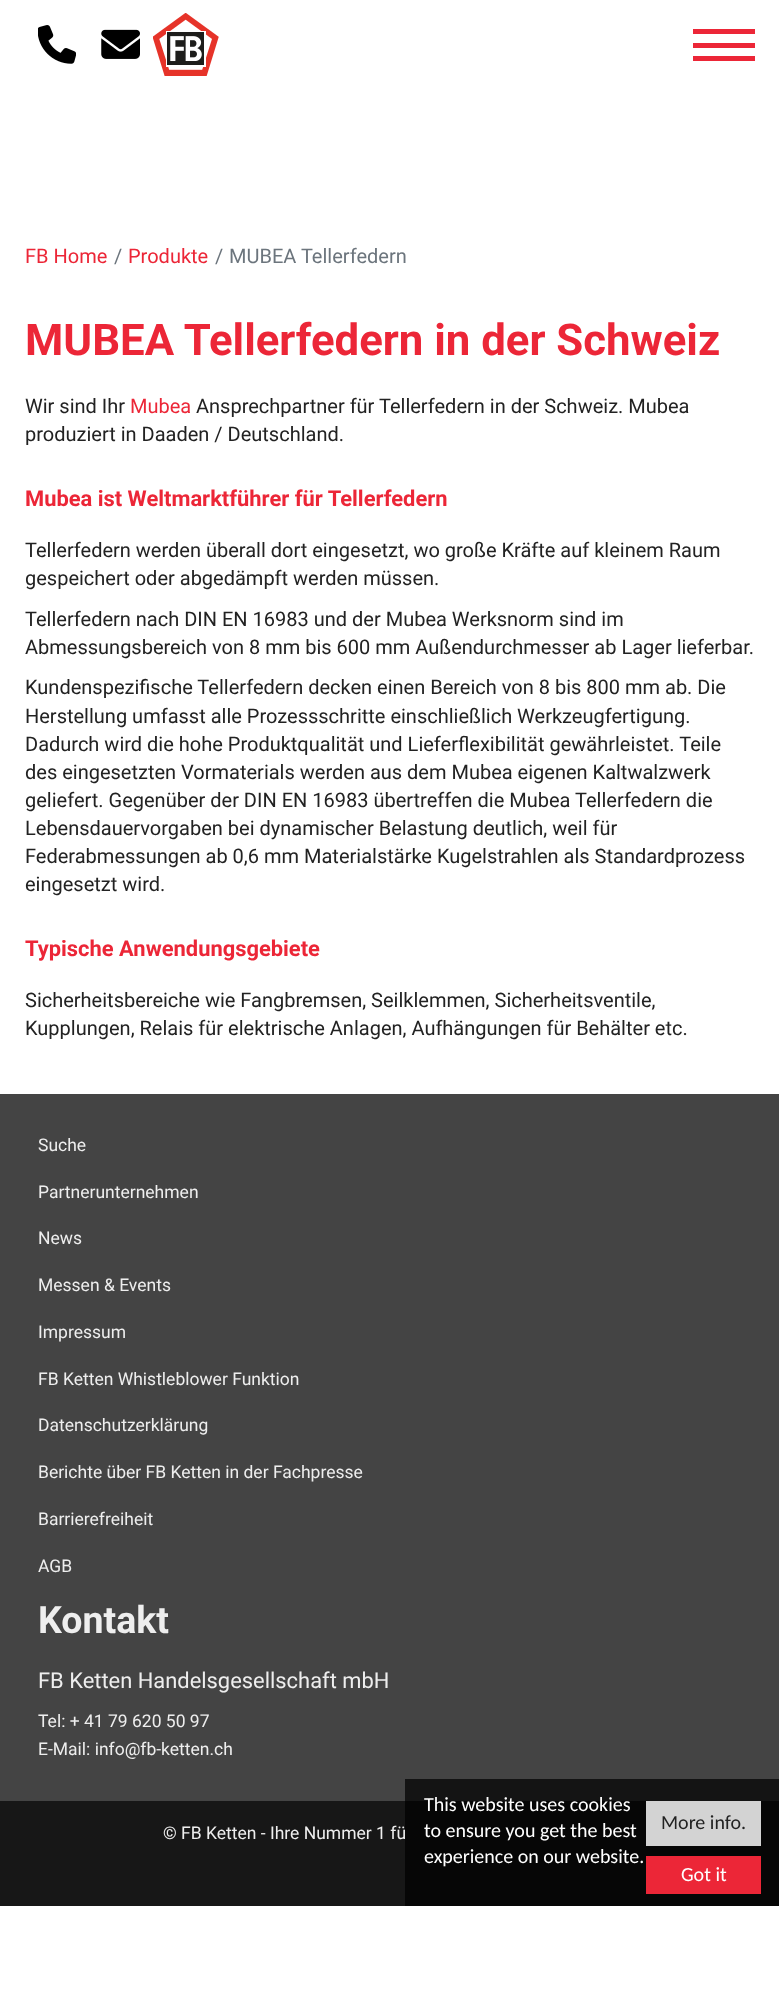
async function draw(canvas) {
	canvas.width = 779;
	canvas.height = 1993;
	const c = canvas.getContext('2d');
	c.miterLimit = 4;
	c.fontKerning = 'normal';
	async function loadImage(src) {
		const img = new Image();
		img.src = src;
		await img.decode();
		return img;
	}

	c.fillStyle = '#fff';
	c.fillRect(0, 0, 779, 1993);
	c.drawImage(await loadImage('img1.png'), 38, 25, 38, 39);
	c.drawImage(await loadImage('img2.png'), 101, 29, 39, 30);
	c.drawImage(await loadImage('img3.png'), 153, 13, 66, 63);
	for (const [x, y, w, h, color] of [
		[693, 29, 62, 5, '#ec2637'],
		[693, 43, 62, 5, '#ec2637'],
		[693, 56, 62, 5, '#ec2637'],
	]) {
		c.fillStyle = color;
		c.fillRect(x, y, w, h);
	}
	c.font = '20px Roboto';
	c.fillText('FB Home', 25, 263);
	c.fillStyle = '#6c757d';
	c.fillText('/', 114, 263);
	c.fillStyle = '#ec2637';
	c.fillText('Produkte', 128, 263);
	c.fillStyle = '#6c757d';
	c.fillText('/', 215, 263);
	c.fillText('MUBEA Tellerfedern', 229, 263);
	c.font = 'bold 43.75px Roboto';
	c.fillStyle = '#ec2637';
	c.fillText('MUBEA Tellerfedern in der Schweiz', 25, 355);
	c.font = '20px Roboto';
	c.fillStyle = '#222';
	c.fillText('Wir sind Ihr', 25, 413);
	c.fillStyle = '#ec2637';
	c.fillText('Mubea', 130, 413);
	c.fillStyle = '#222';
	c.fillText('Ansprechpartner für Tellerfedern in der Schweiz. Mubea', 196, 413);
	c.fillText('produziert in Daaden / Deutschland.', 25, 441);
	c.font = 'bold 21.9px Roboto';
	c.fillStyle = '#ec2637';
	c.fillText('Mubea ist Weltmarktführer für Tellerfedern', 25, 506);
	c.font = '20px Roboto';
	c.fillStyle = '#222';
	for (const [text, x, y] of [
		['Tellerfedern werden überall dort eingesetzt, wo große Kräfte auf kleinem Raum', 25, 557],
		['gespeichert oder abgedämpft werden müssen.', 25, 585],
		['Tellerfedern nach DIN EN 16983 und der Mubea Werksnorm sind im', 25, 626],
		['Abmessungsbereich von 8 mm bis 600 mm Außendurchmesser ab Lager lieferbar.', 25, 654],
		['Kundenspezifische Tellerfedern decken einen Bereich von 8 bis 800 mm ab. Die', 25, 694],
		['Herstellung umfasst alle Prozessschritte einschließlich Werkzeugfertigung.', 25, 723],
		['Dadurch wird die hohe Produktqualität und Lieferflexibilität gewährleistet. Teile', 25, 751],
		['des eingesetzten Vormaterials werden aus dem Mubea eigenen Kaltwalzwerk', 25, 779],
		['geliefert. Gegenüber der DIN EN 16983 übertreffen die Mubea Tellerfedern die', 25, 807],
		['Lebensdauervorgaben bei dynamischer Belastung deutlich, weil für', 25, 835],
		['Federabmessungen ab 0,6 mm Materialstärke Kugelstrahlen als Standardprozess', 25, 863],
		['eingesetzt wird.', 25, 891],
	]) {
		c.fillText(text, x, y);
	}
	c.font = 'bold 21.9px Roboto';
	c.fillStyle = '#ec2637';
	c.fillText('Typische Anwendungsgebiete', 25, 956);
	c.font = '20px Roboto';
	c.fillStyle = '#222';
	c.fillText('Sicherheitsbereiche wie Fangbremsen, Seilklemmen, Sicherheitsventile,', 25, 1007);
	c.fillText('Kupplungen, Relais für elektrische Anlagen, Aufhängungen für Behälter etc.', 25, 1035);
	c.fillStyle = '#444';
	c.fillRect(0, 1094, 779, 707);
	c.font = '17.5px Roboto';
	c.fillStyle = '#eee';
	for (const [text, x, y] of [
		['Suche', 38, 1151],
		['Partnerunternehmen', 38, 1198],
		['News', 38, 1244],
		['Messen & Events', 38, 1291],
		['Impressum', 38, 1338],
		['FB Ketten Whistleblower Funktion', 38, 1385],
		['Datenschutzerklärung', 38, 1431],
		['Berichte über FB Ketten in der Fachpresse', 38, 1478],
		['Barrierefreiheit', 38, 1525],
		['AGB', 38, 1572],
	]) {
		c.fillText(text, x, y);
	}
	c.font = 'bold 37.5px Roboto';
	c.fillText('Kontakt', 38, 1633);
	c.font = '21.9px Roboto';
	c.fillText('FB Ketten Handelsgesellschaft mbH', 38, 1688);
	c.font = '17.5px Roboto';
	c.fillText('Tel: + 41 79 620 50 97', 38, 1727);
	c.fillText('E-Mail: info@fb-ketten.ch', 38, 1755);
	c.fillStyle = '#171717';
	c.fillRect(0, 1801, 779, 105);
	c.fillStyle = '#eee';
	c.fillText('© FB Ketten - Ihre Nummer 1 fü', 163, 1839);
	c.fillStyle = '#000000b3';
	c.fillRect(405, 1779, 374, 127);
	c.font = '20px Carlito';
	c.fillStyle = '#fff';
	for (const [text, x, y] of [
		['This website uses cookies', 424, 1811],
		['to ensure you get the best', 424, 1837],
		['experience on our website.', 424, 1863],
	]) {
		c.fillText(text, x, y);
	}
	c.fillStyle = '#d3d3d3';
	c.fillRect(646, 1801, 115, 45);
	c.fillStyle = '#222';
	c.fillText('More info.', 661, 1829);
	c.fillStyle = '#ec2637';
	c.fillRect(646, 1856, 115, 38);
	c.fillStyle = '#fff';
	c.fillText('Got it', 681, 1881);
}

draw(document.querySelector('canvas'));
